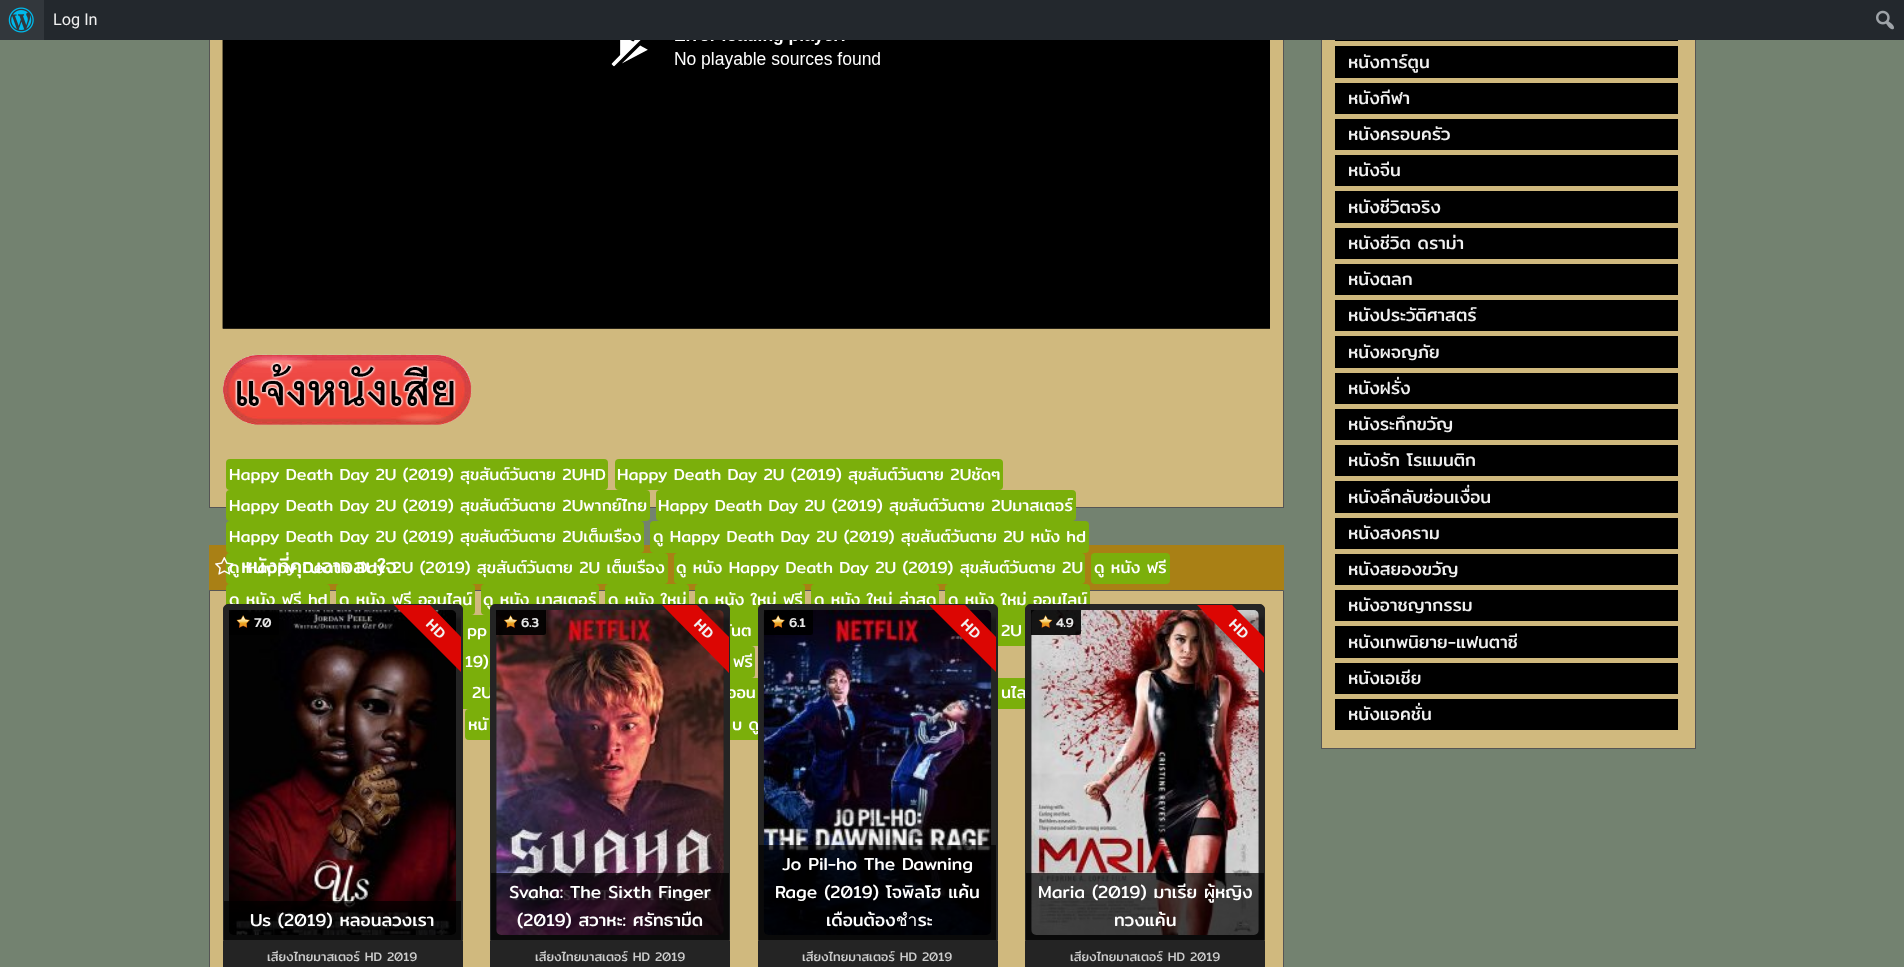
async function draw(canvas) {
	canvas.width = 1904;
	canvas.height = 967;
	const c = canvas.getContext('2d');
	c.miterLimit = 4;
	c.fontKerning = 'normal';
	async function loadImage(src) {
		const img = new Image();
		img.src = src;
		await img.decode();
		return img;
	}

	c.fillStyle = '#738270';
	c.fillRect(0, 0, 1904, 967);
	c.fillStyle = '#d0b97e';
	c.fillRect(210, 40, 1073, 467);
	c.strokeStyle = '#555';
	c.strokeRect(209.5, -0.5, 1074, 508);
	c.fillRect(1322, 40, 373, 708);
	c.strokeRect(1321.5, -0.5, 374, 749);
	c.fillStyle = '#23282d';
	c.fillRect(44, 0, 1860, 40);
	c.fillStyle = '#32373c';
	c.fillRect(0, 0, 44, 40);
	c.drawImage(await loadImage('img1.png'), 8, 7, 26, 26);
	c.font = '16.25px Roboto';
	c.fillStyle = '#f0f0f0';
	c.fillText('Log In', 53, 25);
	c.drawImage(await loadImage('img2.png'), 1876, 10, 18, 20);
	c.drawImage(await loadImage('img3.png'), 222, 40, 1048, 289);
	c.drawImage(await loadImage('img4.png'), 223, 354, 250, 71);
	c.fillStyle = '#7baf0b';
	c.beginPath();
	c.roundRect(226, 459, 382, 31, 4);
	c.fill();
	c.font = '16.25px Mitr';
	c.fillStyle = '#fff';
	c.fillText('Happy Death Day 2U (2019) สุขสันต์วันตาย 2UHD', 229, 480);
	c.fillStyle = '#7baf0b';
	c.beginPath();
	c.roundRect(615, 459, 388, 31, 4);
	c.fill();
	c.fillStyle = '#fff';
	c.fillText('Happy Death Day 2U (2019) สุขสันต์วันตาย 2Uชัดๆ', 617, 480);
	c.fillStyle = '#7baf0b';
	c.beginPath();
	c.roundRect(226, 490, 424, 31, 4);
	c.fill();
	c.fillStyle = '#fff';
	c.fillText('Happy Death Day 2U (2019) สุขสันต์วันตาย 2Uพากย์ไทย', 229, 511);
	c.fillStyle = '#7baf0b';
	c.beginPath();
	c.roundRect(656, 490, 420, 31, 4);
	c.fill();
	c.fillStyle = '#fff';
	c.fillText('Happy Death Day 2U (2019) สุขสันต์วันตาย 2Uมาสเตอร์', 658, 511);
	c.fillStyle = '#a98015';
	c.fillRect(209, 545, 1075, 45);
	c.fillStyle = '#7baf0b';
	c.beginPath();
	c.roundRect(226, 521, 418, 32, 4);
	c.fill();
	c.fillStyle = '#fff';
	c.fillText('Happy Death Day 2U (2019) สุขสันต์วันตาย 2Uเต็มเรือง', 229, 542);
	c.fillStyle = '#7baf0b';
	c.beginPath();
	c.roundRect(650, 521, 439, 32, 4);
	c.fill();
	c.fillStyle = '#fff';
	c.fillText('ดู Happy Death Day 2U (2019) สุขสันต์วันตาย 2U หนัง hd', 653, 542);
	c.fillStyle = '#7baf0b';
	c.beginPath();
	c.roundRect(226, 553, 442, 31, 4);
	c.fill();
	c.fillStyle = '#fff';
	c.fillText('ดู Happy Death Day 2U (2019) สุขสันต์วันตาย 2U เต็มเรือง', 229, 573);
	c.fillStyle = '#7baf0b';
	c.beginPath();
	c.roundRect(674, 553, 411, 31, 4);
	c.fill();
	c.fillStyle = '#fff';
	c.fillText('ดู หนัง Happy Death Day 2U (2019) สุขสันต์วันตาย 2U', 676, 573);
	c.fillStyle = '#7baf0b';
	c.beginPath();
	c.roundRect(1091, 553, 79, 31, 4);
	c.fill();
	c.fillStyle = '#fff';
	c.fillText('ดู หนัง ฟรี', 1094, 573);
	c.fillStyle = '#d0b97e';
	c.beginPath();
	c.rect(209.5, 590.5, 1074, 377);
	c.fill();
	c.stroke();
	c.fillStyle = '#7baf0b';
	c.beginPath();
	c.roundRect(226, 584, 104, 31, 4);
	c.fill();
	c.fillStyle = '#fff';
	c.fillText('ดู หนัง ฟรี hd', 229, 605);
	c.fillStyle = '#7baf0b';
	c.beginPath();
	c.roundRect(336, 584, 139, 31, 4);
	c.fill();
	c.fillStyle = '#fff';
	c.fillText('ดู หนัง ฟรี ออนไลน์', 339, 605);
	c.fillStyle = '#7baf0b';
	c.beginPath();
	c.roundRect(481, 584, 118, 31, 4);
	c.fill();
	c.fillStyle = '#fff';
	c.fillText('ดู หนัง มาสเตอร์', 483, 605);
	c.fillStyle = '#7baf0b';
	c.beginPath();
	c.roundRect(605, 584, 84, 31, 4);
	c.fill();
	c.fillStyle = '#fff';
	c.fillText('ดู หนัง ใหม่', 608, 605);
	c.fillStyle = '#7baf0b';
	c.beginPath();
	c.roundRect(695, 584, 110, 31, 4);
	c.fill();
	c.fillStyle = '#fff';
	c.fillText('ดู หนัง ใหม่ ฟรี', 698, 605);
	c.fillStyle = '#7baf0b';
	c.beginPath();
	c.roundRect(811, 584, 128, 31, 4);
	c.fill();
	c.fillStyle = '#fff';
	c.fillText('ดู หนัง ใหม่ ล่าสุด', 814, 605);
	c.fillStyle = '#7baf0b';
	c.beginPath();
	c.roundRect(945, 584, 145, 31, 4);
	c.fill();
	c.fillStyle = '#fff';
	c.fillText('ดู หนัง ใหม่ ออนไลน์', 948, 605);
	c.fillStyle = '#7baf0b';
	c.fillRect(463, 615, 295, 31);
	c.fillStyle = '#fff';
	c.fillText('pp', 467, 636);
	c.fillText('ันต', 731, 636);
	c.fillStyle = '#7baf0b';
	c.fillRect(998, 615, 27, 31);
	c.fillStyle = '#fff';
	c.fillText('2U', 1001, 636);
	c.fillStyle = '#7baf0b';
	c.fillRect(463, 646, 27, 63);
	c.fillStyle = '#fff';
	c.fillText('19)', 465, 667);
	c.fillStyle = '#7baf0b';
	c.beginPath();
	c.roundRect(695, 646, 60, 32, 4);
	c.fill();
	c.fillStyle = '#fff';
	c.fillText('ฟรี', 733, 667);
	c.fillText('2U', 472, 698);
	c.fillStyle = '#7baf0b';
	c.fillRect(730, 678, 28, 62);
	c.fillStyle = '#fff';
	c.fillText('ออน', 727, 698);
	c.fillStyle = '#7baf0b';
	c.fillRect(998, 678, 27, 31);
	c.fillStyle = '#fff';
	c.fillText('นไล', 1001, 698);
	c.fillStyle = '#7baf0b';
	c.beginPath();
	c.roundRect(465, 709, 111, 31, 4);
	c.fill();
	c.fillStyle = '#fff';
	c.fillText('หนั', 468, 730);
	c.fillText('บ ดู', 732, 730);
	c.drawImage(await loadImage('img5.png'), 215, 557, 19, 18);
	c.font = '20px Mitr';
	c.fillText('หนังที่คุณอาจสนใจ', 241, 573);
	c.fillStyle = '#242424';
	c.beginPath();
	c.roundRect(223.5, 604.5, 239, 336, [4.5, 4.5, 0, 0]);
	c.fill();
	c.strokeStyle = '#242424';
	c.stroke();
	c.drawImage(await loadImage('img6.png'), 229, 610, 227, 325);
	c.fillStyle = '#000000e6';
	c.beginPath();
	c.roundRect(229, 610, 50, 25, [0, 0, 2.5, 0]);
	c.fill();
	c.drawImage(await loadImage('img7.png'), 236, 615, 14, 13);
	c.font = 'bold 12.5px Mitr';
	c.fillStyle = '#e6e6e6';
	c.fillText('7.0', 254, 627);
	c.save();
	c.beginPath();
	c.moveTo(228, 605);
	c.lineTo(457, 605);
	c.bezierCurveTo(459, 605, 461, 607, 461, 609);
	c.lineTo(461, 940);
	c.lineTo(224, 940);
	c.lineTo(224, 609);
	c.bezierCurveTo(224, 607, 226, 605, 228, 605);
	c.closePath();
	c.clip();
	c.fillStyle = '#0000004d';
	c.filter = 'blur(2px)';
	c.beginPath();
	c.rect(386, 618, 100, 25);
	c.fill();
	c.filter = 'none';
	c.restore();
	c.fillStyle = '#dc0603';
	c.beginPath();
	c.moveTo(461, 672);
	c.lineTo(394, 605);
	c.lineTo(430, 605);
	c.lineTo(461, 637);
	c.closePath();
	c.fill();
	c.letterSpacing = '1px';
	c.font = 'bold 14px Mitr';
	c.fillStyle = '#f0f0f0';
	c.save();
	c.translate(425, 625);
	c.rotate(45 * Math.PI / 180);
	c.fillText('HD', 0, 0);
	c.restore();
	c.fillStyle = '#000000b3';
	c.fillRect(224, 901, 237, 39);
	c.letterSpacing = '0px';
	c.font = '17.5px Mitr';
	c.fillStyle = '#fff';
	c.fillText('Us (2019) หลอนลวงเรา', 250, 926);
	c.fillStyle = '#242424';
	c.fillRect(223, 941, 240, 26);
	c.font = '12.5px Mitr';
	c.fillStyle = '#ccc';
	c.fillText('เสียงไทยมาสเตอร์ HD 2019', 267, 961);
	c.fillStyle = '#242424';
	c.beginPath();
	c.roundRect(490.5, 604.5, 239, 336, [4.5, 4.5, 0, 0]);
	c.fill();
	c.stroke();
	c.drawImage(await loadImage('img8.png'), 496, 610, 228, 325);
	c.fillStyle = '#000000e6';
	c.beginPath();
	c.roundRect(496, 610, 50, 25, [0, 0, 2.5, 0]);
	c.fill();
	c.drawImage(await loadImage('img9.png'), 503, 615, 15, 13);
	c.font = 'bold 12.5px Mitr';
	c.fillStyle = '#e6e6e6';
	c.fillText('6.3', 521, 627);
	c.save();
	c.beginPath();
	c.moveTo(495, 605);
	c.lineTo(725, 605);
	c.bezierCurveTo(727, 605, 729, 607, 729, 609);
	c.lineTo(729, 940);
	c.lineTo(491, 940);
	c.lineTo(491, 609);
	c.bezierCurveTo(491, 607, 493, 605, 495, 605);
	c.closePath();
	c.clip();
	c.fillStyle = '#0000004d';
	c.filter = 'blur(2px)';
	c.beginPath();
	c.rect(654, 618, 100, 25);
	c.fill();
	c.filter = 'none';
	c.restore();
	c.fillStyle = '#dc0603';
	c.beginPath();
	c.moveTo(729, 673);
	c.lineTo(662, 605);
	c.lineTo(697, 605);
	c.lineTo(729, 637);
	c.closePath();
	c.fill();
	c.letterSpacing = '1px';
	c.font = 'bold 14px Mitr';
	c.fillStyle = '#f0f0f0';
	c.save();
	c.translate(693, 625);
	c.rotate(45 * Math.PI / 180);
	c.fillText('HD', 0, 0);
	c.restore();
	c.fillStyle = '#000000b3';
	c.fillRect(491, 873, 238, 67);
	c.letterSpacing = '0px';
	c.font = '17.5px Mitr';
	c.fillStyle = '#fff';
	c.fillText('Svaha: The Sixth Finger', 509, 898);
	c.fillText('(2019) สวาหะ: ศรัทธามืด', 517, 926);
	c.fillStyle = '#242424';
	c.fillRect(490, 941, 240, 26);
	c.font = '12.5px Mitr';
	c.fillStyle = '#ccc';
	c.fillText('เสียงไทยมาสเตอร์ HD 2019', 535, 961);
	c.fillStyle = '#242424';
	c.beginPath();
	c.roundRect(758.5, 604.5, 239, 336, [4.5, 4.5, 0, 0]);
	c.fill();
	c.stroke();
	c.drawImage(await loadImage('img10.png'), 763, 610, 229, 325);
	c.fillStyle = '#000000e6';
	c.beginPath();
	c.roundRect(764, 610, 49, 25, [0, 0, 2.5, 0]);
	c.fill();
	c.drawImage(await loadImage('img11.png'), 771, 615, 14, 13);
	c.font = 'bold 12.5px Mitr';
	c.fillStyle = '#e6e6e6';
	c.fillText('6.1', 789, 627);
	c.save();
	c.beginPath();
	c.moveTo(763, 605);
	c.lineTo(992, 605);
	c.bezierCurveTo(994, 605, 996, 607, 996, 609);
	c.lineTo(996, 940);
	c.lineTo(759, 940);
	c.lineTo(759, 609);
	c.bezierCurveTo(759, 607, 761, 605, 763, 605);
	c.closePath();
	c.clip();
	c.fillStyle = '#0000004d';
	c.filter = 'blur(2px)';
	c.beginPath();
	c.rect(921, 618, 100, 25);
	c.fill();
	c.filter = 'none';
	c.restore();
	c.fillStyle = '#dc0603';
	c.beginPath();
	c.moveTo(996, 672);
	c.lineTo(929, 605);
	c.lineTo(965, 605);
	c.lineTo(996, 637);
	c.closePath();
	c.fill();
	c.letterSpacing = '1px';
	c.font = 'bold 14px Mitr';
	c.fillStyle = '#f0f0f0';
	c.save();
	c.translate(960, 625);
	c.rotate(45 * Math.PI / 180);
	c.fillText('HD', 0, 0);
	c.restore();
	c.fillStyle = '#000000b3';
	c.fillRect(759, 845, 237, 95);
	c.letterSpacing = '0px';
	c.font = '17.5px Mitr';
	c.fillStyle = '#fff';
	for (const [text, x, y] of [
		['Jo Pil-ho The Dawning', 782, 870],
		['Rage (2019) โจพิลโฮ แค้น', 775, 898],
		['เดือนต้องชำระ', 826, 926],
	]) {
		c.fillText(text, x, y);
	}
	c.fillStyle = '#242424';
	c.fillRect(758, 941, 240, 26);
	c.font = '12.5px Mitr';
	c.fillStyle = '#ccc';
	c.fillText('เสียงไทยมาสเตอร์ HD 2019', 802, 961);
	c.fillStyle = '#242424';
	c.beginPath();
	c.roundRect(1025.5, 604.5, 239, 336, [4.5, 4.5, 0, 0]);
	c.fill();
	c.stroke();
	c.drawImage(await loadImage('img12.png'), 1031, 610, 228, 325);
	c.fillStyle = '#000000e6';
	c.beginPath();
	c.roundRect(1031, 610, 50, 25, [0, 0, 2.5, 0]);
	c.fill();
	c.drawImage(await loadImage('img13.png'), 1038, 615, 15, 13);
	c.font = 'bold 12.5px Mitr';
	c.fillStyle = '#e6e6e6';
	c.fillText('4.9', 1056, 627);
	c.save();
	c.beginPath();
	c.moveTo(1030, 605);
	c.lineTo(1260, 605);
	c.bezierCurveTo(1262, 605, 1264, 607, 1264, 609);
	c.lineTo(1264, 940);
	c.lineTo(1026, 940);
	c.lineTo(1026, 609);
	c.bezierCurveTo(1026, 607, 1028, 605, 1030, 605);
	c.closePath();
	c.clip();
	c.fillStyle = '#0000004d';
	c.filter = 'blur(2px)';
	c.beginPath();
	c.rect(1189, 618, 100, 25);
	c.fill();
	c.filter = 'none';
	c.restore();
	c.fillStyle = '#dc0603';
	c.beginPath();
	c.moveTo(1264, 673);
	c.lineTo(1197, 605);
	c.lineTo(1232, 605);
	c.lineTo(1264, 637);
	c.closePath();
	c.fill();
	c.letterSpacing = '1px';
	c.font = 'bold 14px Mitr';
	c.fillStyle = '#f0f0f0';
	c.save();
	c.translate(1228, 625);
	c.rotate(45 * Math.PI / 180);
	c.fillText('HD', 0, 0);
	c.restore();
	c.fillStyle = '#000000b3';
	c.fillRect(1026, 873, 238, 67);
	c.letterSpacing = '0px';
	c.font = '17.5px Mitr';
	c.fillStyle = '#fff';
	c.fillText('Maria (2019) มาเรีย ผู้หญิง', 1038, 898);
	c.fillText('ทวงแค้น', 1114, 926);
	c.fillStyle = '#242424';
	c.fillRect(1025, 941, 240, 26);
	c.font = '12.5px Mitr';
	c.fillStyle = '#ccc';
	c.fillText('เสียงไทยมาสเตอร์ HD 2019', 1070, 961);
	c.fillStyle = '#000';
	c.fillRect(1335, 40, 343, 1);
	c.fillRect(1335, 46, 343, 32);
	c.font = '17.5px Mitr';
	c.fillStyle = '#f0f0f0';
	c.fillText('หนังการ์ตูน', 1348, 68);
	c.fillStyle = '#000';
	c.fillRect(1335, 83, 343, 31);
	c.fillStyle = '#f0f0f0';
	c.fillText('หนังกีฬา', 1348, 104);
	c.fillStyle = '#000';
	c.fillRect(1335, 119, 343, 31);
	c.fillStyle = '#f0f0f0';
	c.fillText('หนังครอบครัว', 1348, 140);
	c.fillStyle = '#000';
	c.fillRect(1335, 155, 343, 31);
	c.fillStyle = '#f0f0f0';
	c.fillText('หนังจีน', 1348, 176);
	c.fillStyle = '#000';
	c.fillRect(1335, 191, 343, 32);
	c.fillStyle = '#f0f0f0';
	c.fillText('หนังชีวิตจริง', 1348, 213);
	c.fillStyle = '#000';
	c.fillRect(1335, 228, 343, 31);
	c.fillStyle = '#f0f0f0';
	c.fillText('หนังชีวิต ดราม่า', 1348, 249);
	c.fillStyle = '#000';
	c.fillRect(1335, 264, 343, 31);
	c.fillStyle = '#f0f0f0';
	c.fillText('หนังตลก', 1348, 285);
	c.fillStyle = '#000';
	c.fillRect(1335, 300, 343, 31);
	c.fillStyle = '#f0f0f0';
	c.fillText('หนังประวัติศาสตร์', 1348, 321);
	c.fillStyle = '#000';
	c.fillRect(1335, 336, 343, 32);
	c.fillStyle = '#f0f0f0';
	c.fillText('หนังผจญภัย', 1348, 358);
	c.fillStyle = '#000';
	c.fillRect(1335, 373, 343, 31);
	c.fillStyle = '#f0f0f0';
	c.fillText('หนังฝรั่ง', 1348, 394);
	c.fillStyle = '#000';
	c.fillRect(1335, 409, 343, 31);
	c.fillStyle = '#f0f0f0';
	c.fillText('หนังระทึกขวัญ', 1348, 430);
	c.fillStyle = '#000';
	c.fillRect(1335, 445, 343, 31);
	c.fillStyle = '#f0f0f0';
	c.fillText('หนังรัก โรแมนติก', 1348, 466);
	c.fillStyle = '#000';
	c.fillRect(1335, 481, 343, 32);
	c.fillStyle = '#f0f0f0';
	c.fillText('หนังลึกลับซ่อนเงื่อน', 1348, 503);
	c.fillStyle = '#000';
	c.fillRect(1335, 518, 343, 31);
	c.fillStyle = '#f0f0f0';
	c.fillText('หนังสงคราม', 1348, 539);
	c.fillStyle = '#000';
	c.fillRect(1335, 554, 343, 31);
	c.fillStyle = '#f0f0f0';
	c.fillText('หนังสยองขวัญ', 1348, 575);
	c.fillStyle = '#000';
	c.fillRect(1335, 590, 343, 31);
	c.fillStyle = '#f0f0f0';
	c.fillText('หนังอาชญากรรม', 1348, 611);
	c.fillStyle = '#000';
	c.fillRect(1335, 626, 343, 32);
	c.fillStyle = '#f0f0f0';
	c.fillText('หนังเทพนิยาย-แฟนตาซี', 1348, 648);
	c.fillStyle = '#000';
	c.fillRect(1335, 663, 343, 31);
	c.fillStyle = '#f0f0f0';
	c.fillText('หนังเอเชีย', 1348, 684);
	c.fillStyle = '#000';
	c.fillRect(1335, 699, 343, 31);
	c.fillStyle = '#f0f0f0';
	c.fillText('หนังแอคชั่น', 1348, 720);
}

draw(document.querySelector('canvas'));
